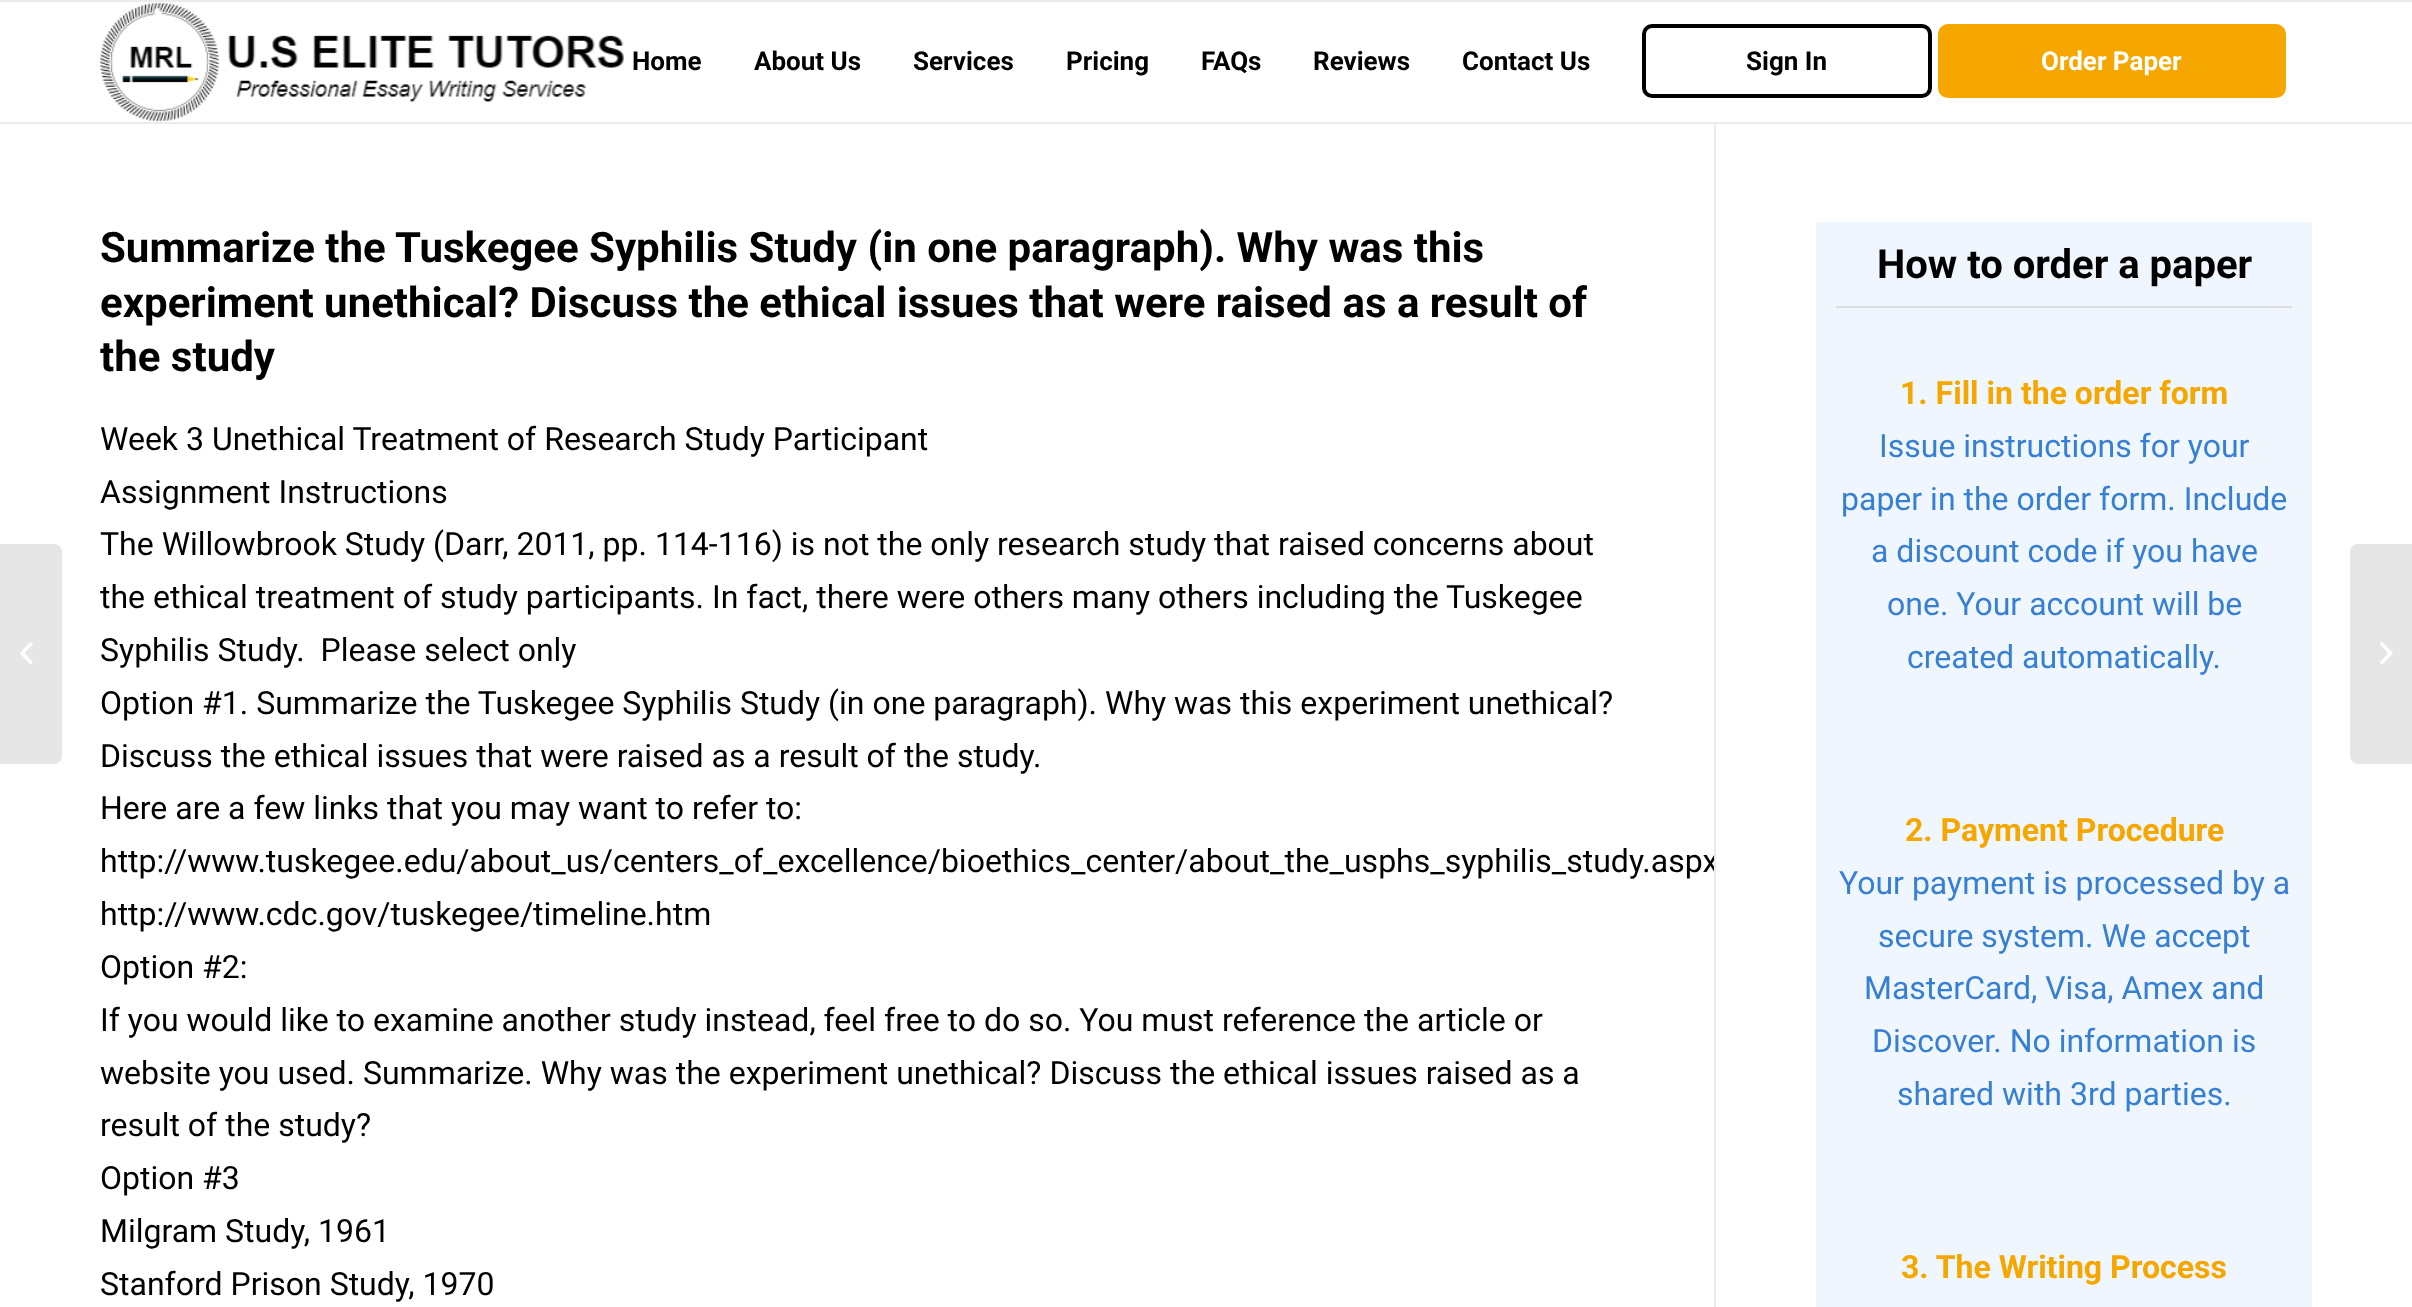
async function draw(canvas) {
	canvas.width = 2412;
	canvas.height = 1307;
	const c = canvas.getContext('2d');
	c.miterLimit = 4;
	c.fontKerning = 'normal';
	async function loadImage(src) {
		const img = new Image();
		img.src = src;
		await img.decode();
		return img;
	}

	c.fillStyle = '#fff';
	c.fillRect(0, 0, 2412, 1307);
	for (const [x, y, w, h, color] of [
		[0, 0, 2412, 2, '#ebebeb'],
		[1714, 122, 2, 1185, '#ebebeb'],
		[0, 122, 2412, 2, '#ebebeb'],
	]) {
		c.fillStyle = color;
		c.fillRect(x, y, w, h);
	}
	c.drawImage(await loadImage('img1.png'), 100, 2, 524, 120);
	c.font = 'bold 26px Roboto';
	c.fillStyle = '#000';
	for (const [text, x, y] of [
		['Home', 632, 70],
		['About Us', 754, 70],
		['Services', 913, 70],
		['Pricing', 1066, 70],
		['FAQs', 1201, 70],
		['Reviews', 1313, 70],
		['Contact Us', 1462, 70],
	]) {
		c.fillText(text, x, y);
	}
	c.beginPath();
	c.roundRect(1644, 26, 286, 70, 8);
	c.strokeStyle = '#000';
	c.lineWidth = 4;
	c.stroke();
	c.fillText('Sign In', 1746, 70);
	c.fillStyle = '#f5a700';
	c.beginPath();
	c.roundRect(1940, 26, 344, 70, 8);
	c.fill();
	c.strokeStyle = '#f5a700';
	c.stroke();
	c.fillStyle = '#fff';
	c.fillText('Order Paper', 2041, 70);
	c.fillStyle = '#e6e6e6';
	c.beginPath();
	c.roundRect(0, 544, 62, 220, [0, 8, 8, 0]);
	c.fill();
	c.drawImage(await loadImage('img2.png'), 20, 642, 13, 22);
	c.font = 'bold 42px Roboto';
	c.fillStyle = '#000';
	for (const [text, x, y] of [
		['Summarize the Tuskegee Syphilis Study (in one paragraph). Why was this', 100, 262],
		['experiment unethical? Discuss the ethical issues that were raised as a result of', 100, 317],
		['the study', 100, 371],
	]) {
		c.fillText(text, x, y);
	}
	c.font = '32px Roboto';
	for (const [text, x, y] of [
		['Week 3 Unethical Treatment of Research Study Participant', 100, 450],
		['Assignment Instructions', 100, 503],
		['The Willowbrook Study (Darr, 2011, pp. 114-116) is not the only research study that raised concerns about', 100, 555],
		['the ethical treatment of study participants. In fact, there were others many others including the Tuskegee', 100, 608],
		['Syphilis Study.  Please select only', 100, 661],
		['Option #1. Summarize the Tuskegee Syphilis Study (in one paragraph). Why was this experiment unethical?', 100, 714],
		['Discuss the ethical issues that were raised as a result of the study.', 100, 767],
		['Here are a few links that you may want to refer to:', 100, 819],
	]) {
		c.fillText(text, x, y);
	}
	c.save();
	c.beginPath();
	c.rect(100, 222, 1614, 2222);
	c.clip();
	c.fillText('http://www.tuskegee.edu/about_us/centers_of_excellence/bioethics_center/about_the_usphs_syphilis_study.aspx', 100, 872);
	c.restore();
	for (const [text, x, y] of [
		['http://www.cdc.gov/tuskegee/timeline.htm', 100, 925],
		['Option #2:', 100, 978],
		['If you would like to examine another study instead, feel free to do so. You must reference the article or', 100, 1031],
		['website you used. Summarize. Why was the experiment unethical? Discuss the ethical issues raised as a', 100, 1084],
		['result of the study?', 100, 1136],
		['Option #3', 100, 1189],
		['Milgram Study, 1961', 100, 1242],
		['Stanford Prison Study, 1970', 100, 1295],
	]) {
		c.fillText(text, x, y);
	}
	c.fillStyle = '#f0f6fd';
	c.fillRect(1816, 222, 496, 1085);
	c.font = 'bold 40px Roboto';
	c.fillStyle = '#000';
	c.fillText('How to order a paper', 1877, 278);
	c.fillStyle = '#ddd';
	c.fillRect(1836, 306, 456, 2);
	c.font = 'bold 32px Roboto';
	c.fillStyle = '#f5a700';
	c.fillText('1. Fill in the order form', 1900, 404);
	c.font = '32px Roboto';
	c.fillStyle = '#367fd3';
	for (const [text, x, y] of [
		['Issue instructions for your', 1879, 457],
		['paper in the order form. Include', 1841, 510],
		['a discount code if you have', 1871, 562],
		['one. Your account will be', 1887, 615],
		['created automatically.', 1907, 668],
	]) {
		c.fillText(text, x, y);
	}
	c.font = 'bold 32px Roboto';
	c.fillStyle = '#f5a700';
	c.fillText('2. Payment Procedure', 1905, 841);
	c.font = '32px Roboto';
	c.fillStyle = '#367fd3';
	for (const [text, x, y] of [
		['Your payment is processed by a', 1839, 894],
		['secure system. We accept', 1878, 947],
		['MasterCard, Visa, Amex and', 1864, 999],
		['Discover. No information is', 1872, 1052],
		['shared with 3rd parties.', 1897, 1105],
	]) {
		c.fillText(text, x, y);
	}
	c.font = 'bold 32px Roboto';
	c.fillStyle = '#f5a700';
	c.fillText('3. The Writing Process', 1901, 1278);
	c.fillStyle = '#e6e6e6';
	c.beginPath();
	c.roundRect(2350, 544, 62, 220, [8, 0, 0, 8]);
	c.fill();
	c.drawImage(await loadImage('img3.png'), 2380, 642, 13, 23);
}

draw(document.querySelector('canvas'));
